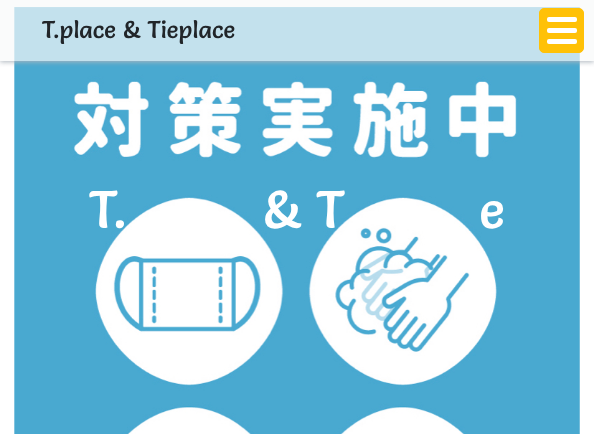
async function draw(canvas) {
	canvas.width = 594;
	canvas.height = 434;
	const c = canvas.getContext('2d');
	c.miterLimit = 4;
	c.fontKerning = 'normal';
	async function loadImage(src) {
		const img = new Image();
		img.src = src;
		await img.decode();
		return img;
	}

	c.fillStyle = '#fff';
	c.fillRect(0, 0, 594, 434);
	c.drawImage(await loadImage('img1.png'), 0, 0, 594, 434);
	c.save();
	c.beginPath();
	c.rect(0, 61, 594, 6);
	c.clip();
	c.fillStyle = '#adb5bd';
	c.filter = 'blur(2.5px)';
	c.beginPath();
	c.rect(0, 1, 594, 61);
	c.fill();
	c.filter = 'none';
	c.restore();
	c.fillStyle = '#f8f9fab3';
	c.fillRect(0, 0, 594, 61);
	c.font = '24px Salsa';
	c.fillStyle = '#212529';
	c.fillText('T.place & Tieplace', 42, 38);
	c.fillStyle = '#ffc107';
	c.beginPath();
	c.roundRect(539.5, 8.5, 44, 44, 4.5);
	c.fill();
	c.strokeStyle = '#ffc107';
	c.stroke();
	c.fillStyle = '#fff';
	c.beginPath();
	c.roundRect(547, 17, 30, 5, 2);
	c.fill();
	c.beginPath();
	c.roundRect(547, 28, 30, 5, 2);
	c.fill();
	c.beginPath();
	c.roundRect(547, 39, 30, 5, 2);
	c.fill();
	c.font = '52px Salsa';
	for (const [text, x, y] of [
		['T.', 89, 228],
		['& T', 263, 228],
		['e', 480, 228],
	]) {
		c.fillText(text, x, y);
	}
}

draw(document.querySelector('canvas'));
